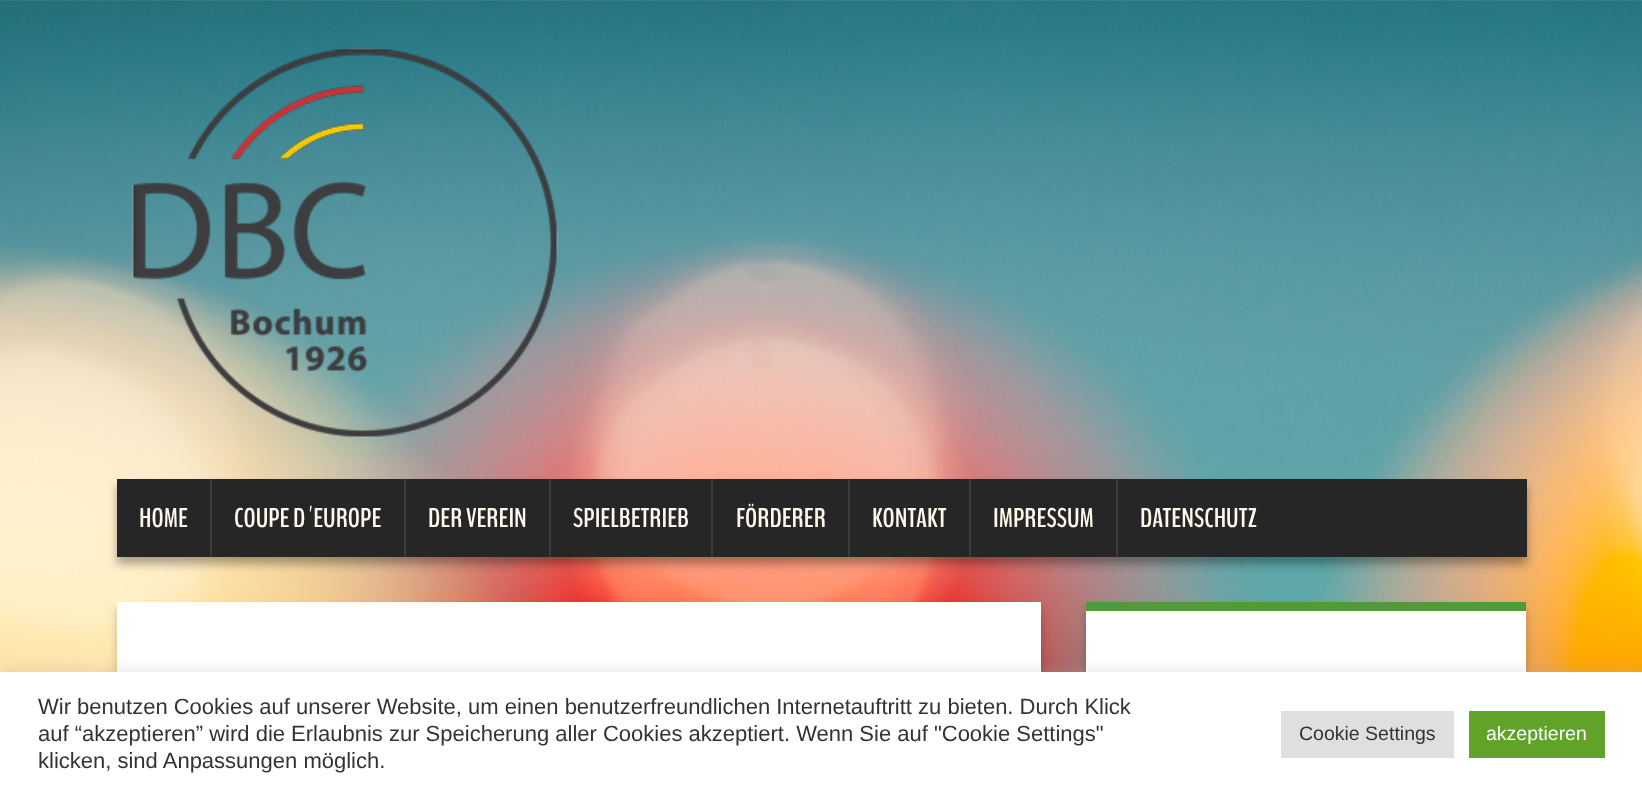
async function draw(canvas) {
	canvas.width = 1642;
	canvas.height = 794;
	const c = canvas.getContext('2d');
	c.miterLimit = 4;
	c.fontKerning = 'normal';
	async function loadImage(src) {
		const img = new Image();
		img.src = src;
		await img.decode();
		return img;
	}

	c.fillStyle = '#fff';
	c.fillRect(0, 0, 1642, 794);
	c.drawImage(await loadImage('img1.png'), 0, 0, 1642, 672);
	c.drawImage(await loadImage('img2.png'), 131, 47, 428, 391);
	c.fillStyle = '#00000054';
	c.filter = 'blur(5px)';
	c.beginPath();
	c.rect(117, 486, 1410, 78);
	c.fill();
	c.filter = 'none';
	c.fillStyle = '#262626';
	c.fillRect(117, 479, 1410, 78);
	c.font = 'bold 27px BenchNine';
	c.fillStyle = '#fff8ed';
	c.fillText('HOME', 139, 527);
	c.fillStyle = '#3a3a3a';
	c.fillRect(210, 479, 2, 78);
	c.fillStyle = '#fff8ed';
	c.fillText('COUPE D´EUROPE', 234, 527);
	c.fillStyle = '#3a3a3a';
	c.fillRect(404, 479, 2, 78);
	c.fillStyle = '#fff8ed';
	c.fillText('DER VEREIN', 428, 527);
	c.fillStyle = '#3a3a3a';
	c.fillRect(549, 479, 2, 78);
	c.fillStyle = '#fff8ed';
	c.fillText('SPIELBETRIEB', 573, 527);
	c.fillStyle = '#3a3a3a';
	c.fillRect(711, 479, 2, 78);
	c.fillStyle = '#fff8ed';
	c.fillText('FÖRDERER', 736, 527);
	c.fillStyle = '#3a3a3a';
	c.fillRect(848, 479, 2, 78);
	c.fillStyle = '#fff8ed';
	c.fillText('KONTAKT', 872, 527);
	c.fillStyle = '#3a3a3a';
	c.fillRect(969, 479, 2, 78);
	c.fillStyle = '#fff8ed';
	c.fillText('IMPRESSUM', 993, 527);
	c.fillStyle = '#3a3a3a';
	c.fillRect(1116, 479, 2, 78);
	c.fillStyle = '#fff8ed';
	c.fillText('DATENSCHUTZ', 1140, 527);
	c.fillStyle = '#00000038';
	c.filter = 'blur(5px)';
	c.beginPath();
	c.rect(117, 609, 924, 165);
	c.fill();
	c.filter = 'none';
	c.fillStyle = '#fff';
	c.fillRect(117, 602, 924, 70);
	c.fillStyle = '#00000038';
	c.filter = 'blur(5px)';
	c.beginPath();
	c.rect(1086, 609, 440, 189);
	c.fill();
	c.filter = 'none';
	c.fillStyle = '#fff';
	c.fillRect(1086, 611, 440, 61);
	c.fillStyle = '#509b37';
	c.fillRect(1086, 602, 440, 9);
	c.fillStyle = '#acabab4d';
	c.filter = 'blur(7.5px)';
	c.beginPath();
	c.rect(0, 671, 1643, 123);
	c.fill();
	c.filter = 'none';
	c.fillStyle = '#fff';
	c.fillRect(0, 672, 1642, 122);
	c.font = '22px Liberation Sans';
	c.fillStyle = '#333';
	for (const [text, x, y] of [
		['Wir benutzen Cookies auf unserer Website, um einen benutzerfreundlichen Internetauftritt zu bieten. Durch Klick', 38, 714],
		['auf “akzeptieren” wird die Erlaubnis zur Speicherung aller Cookies akzeptiert. Wenn Sie auf "Cookie Settings"', 38, 741],
		['klicken, sind Anpassungen möglich.', 38, 768],
	]) {
		c.fillText(text, x, y);
	}
	c.fillStyle = '#dedfe0';
	c.fillRect(1281, 711, 173, 47);
	c.font = '19.5px Liberation Sans';
	c.fillStyle = '#333';
	c.fillText('Cookie Settings', 1299, 740);
	c.fillStyle = '#61a229';
	c.fillRect(1469, 711, 136, 47);
	c.fillStyle = '#fff';
	c.fillText('akzeptieren', 1486, 740);
}

draw(document.querySelector('canvas'));
